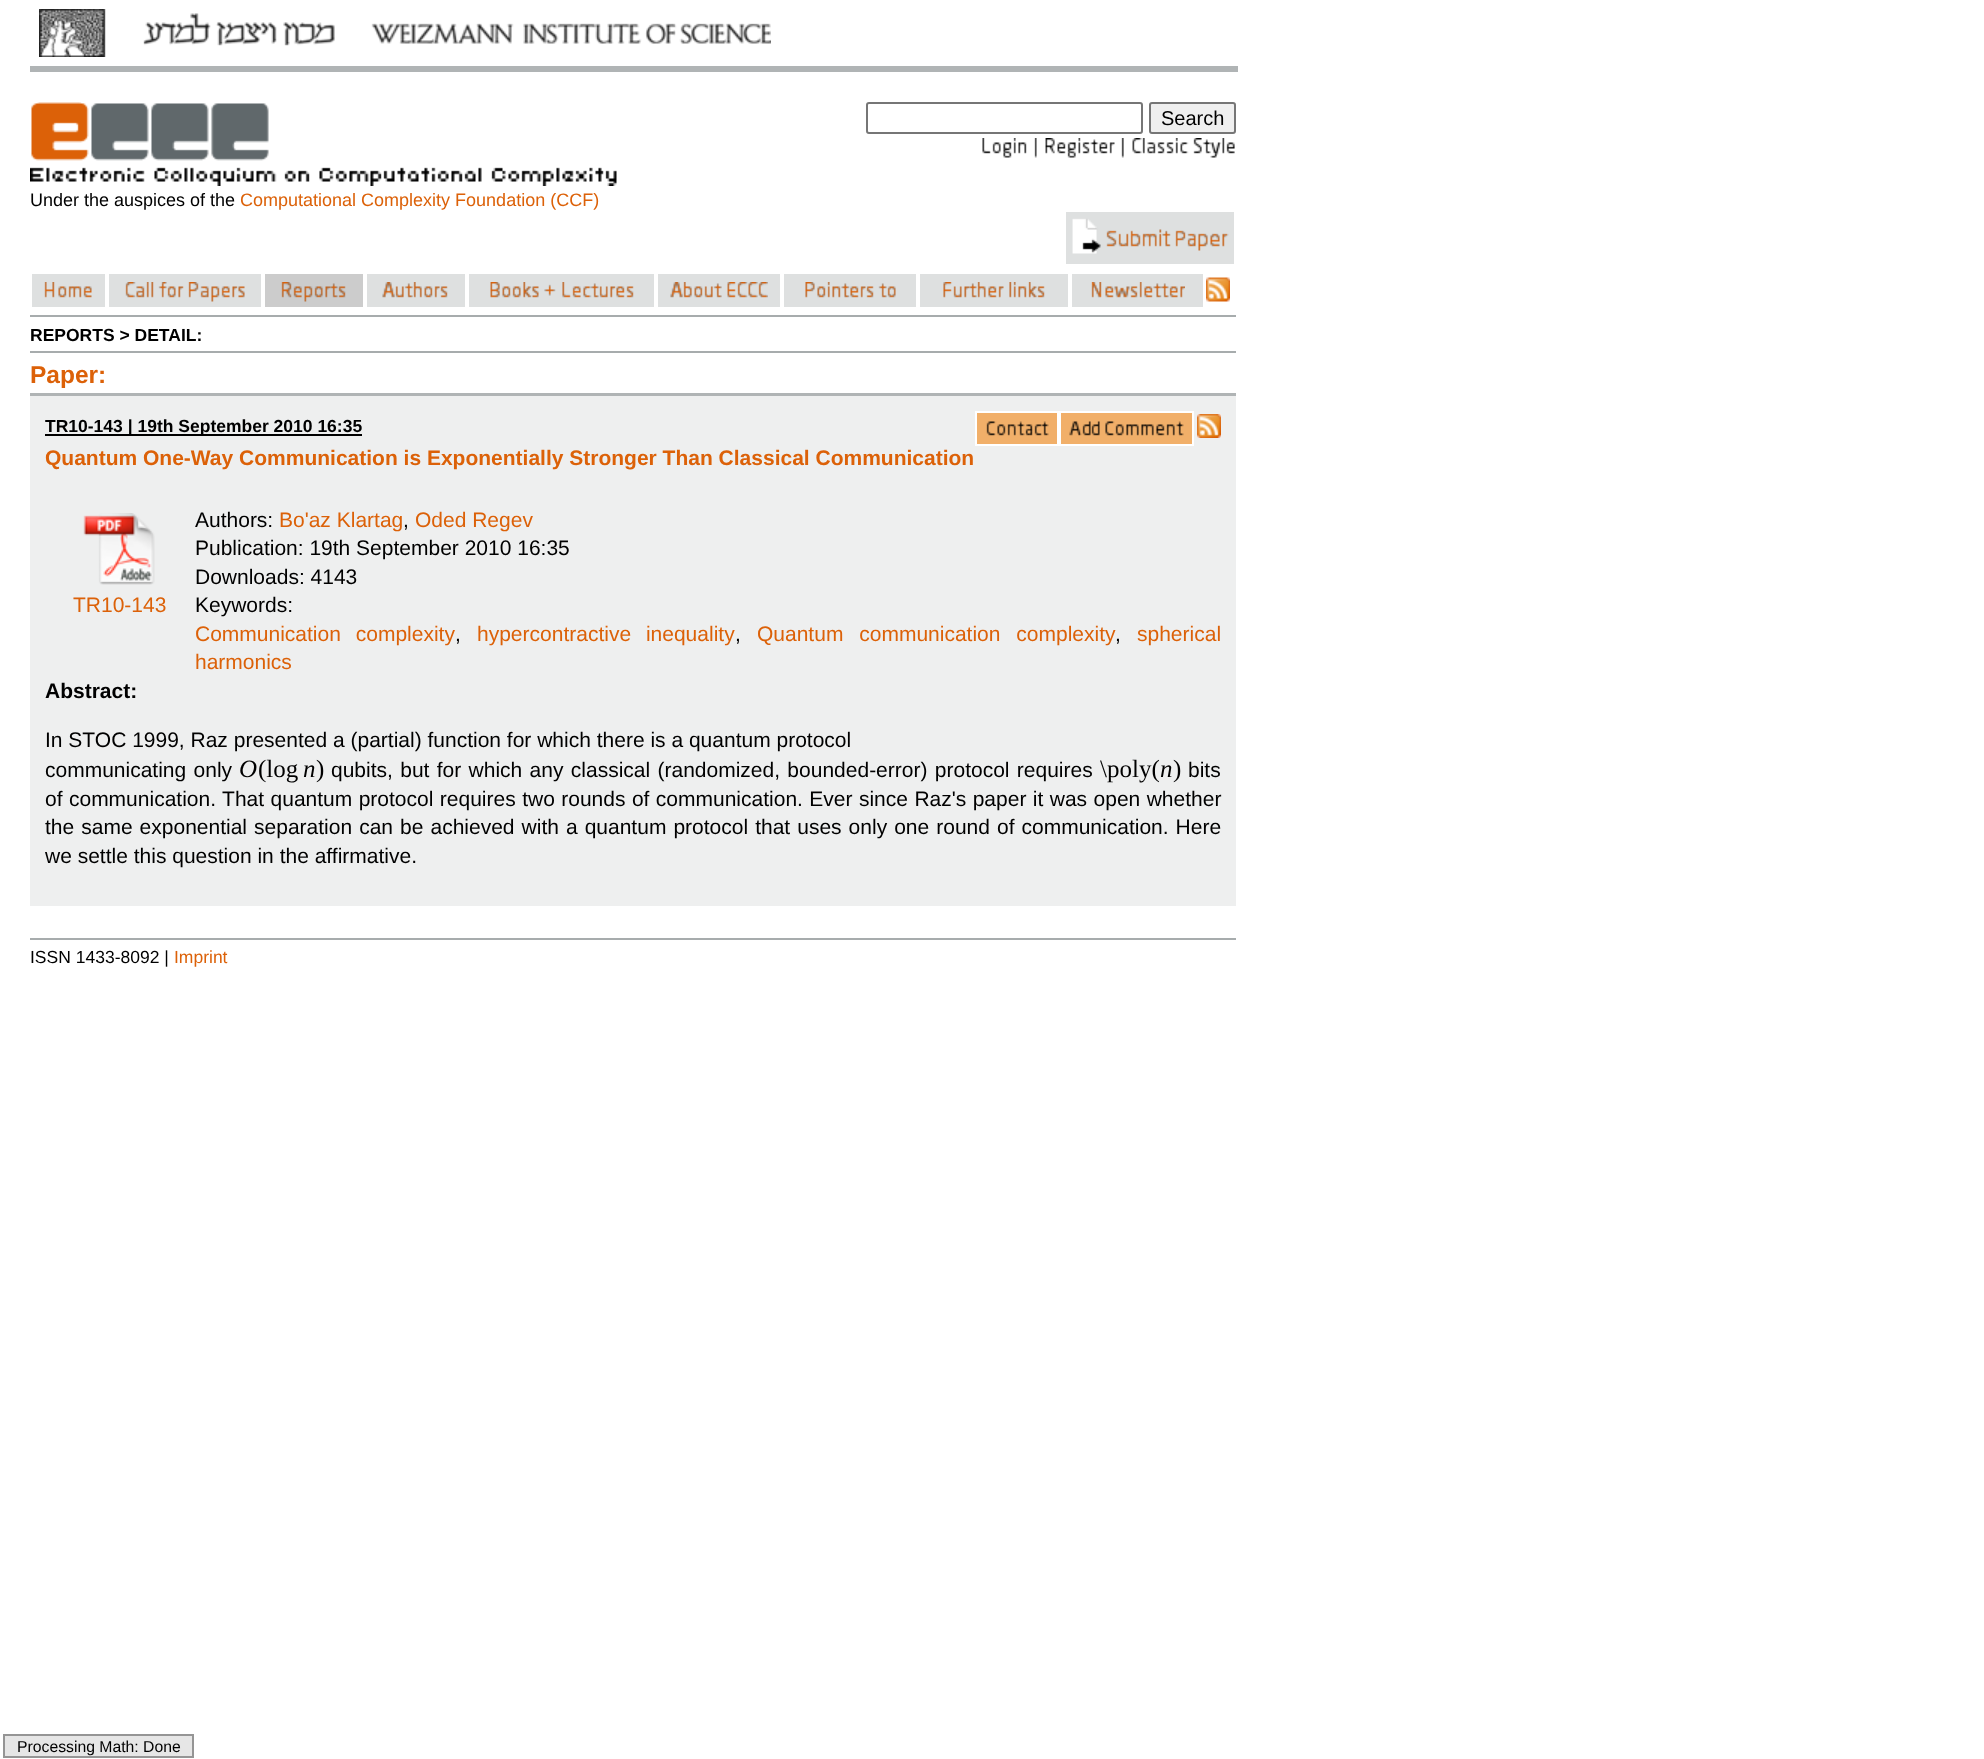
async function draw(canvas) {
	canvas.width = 1984;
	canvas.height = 1759;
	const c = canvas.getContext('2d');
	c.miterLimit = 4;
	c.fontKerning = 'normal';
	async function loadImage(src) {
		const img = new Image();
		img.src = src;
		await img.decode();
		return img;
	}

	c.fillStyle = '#fff';
	c.fillRect(0, 0, 1984, 1759);
	c.fillStyle = '#b0b4b5';
	c.fillRect(30, 66, 1208, 6);
	c.drawImage(await loadImage('img1.png'), 39, 9, 732, 48);
	c.beginPath();
	c.roundRect(867, 103, 275, 30, 2);
	c.strokeStyle = '#767676';
	c.lineWidth = 2;
	c.stroke();
	c.fillStyle = '#efefef';
	c.beginPath();
	c.roundRect(1150, 103, 85, 30, 2);
	c.fill();
	c.stroke();
	c.font = '20px Liberation Sans';
	c.fillStyle = '#000';
	c.fillText('Search', 1161, 125);
	c.drawImage(await loadImage('img2.png'), 982, 138, 45, 20);
	c.drawImage(await loadImage('img3.png'), 1034, 138, 3, 20);
	c.drawImage(await loadImage('img4.png'), 1045, 138, 70, 20);
	c.drawImage(await loadImage('img5.png'), 1121, 138, 3, 20);
	c.drawImage(await loadImage('img6.png'), 1132, 138, 103, 20);
	c.drawImage(await loadImage('img7.png'), 31, 102, 238, 59);
	c.drawImage(await loadImage('img8.png'), 30, 167, 587, 19);
	c.font = '18px Liberation Sans';
	c.fillText('Under the auspices of the', 30, 206);
	c.fillStyle = '#dc6108';
	c.fillText('Computational Complexity Foundation (CCF)', 240, 206);
	c.fillStyle = '#dee0e0';
	c.fillRect(1066, 212, 168, 52);
	c.drawImage(await loadImage('img9.png'), 1072, 218, 29, 36);
	c.drawImage(await loadImage('img10.png'), 1106, 229, 123, 22);
	c.fillRect(32, 274, 73, 33);
	c.drawImage(await loadImage('img11.png'), 44, 282, 48, 16);
	c.fillRect(109, 274, 152, 33);
	c.drawImage(await loadImage('img12.png'), 125, 282, 120, 20);
	c.fillStyle = '#ccc';
	c.fillRect(265, 274, 98, 33);
	c.drawImage(await loadImage('img13.png'), 281, 282, 65, 20);
	c.fillStyle = '#dee0e0';
	c.fillRect(367, 274, 98, 33);
	c.drawImage(await loadImage('img14.png'), 382, 282, 66, 16);
	c.fillRect(469, 274, 185, 33);
	c.drawImage(await loadImage('img15.png'), 490, 282, 144, 16);
	c.fillRect(658, 274, 122, 33);
	c.drawImage(await loadImage('img16.png'), 670, 282, 98, 16);
	c.fillRect(784, 274, 132, 33);
	c.drawImage(await loadImage('img17.png'), 805, 282, 91, 16);
	c.fillRect(920, 274, 148, 33);
	c.drawImage(await loadImage('img18.png'), 943, 282, 102, 16);
	c.fillRect(1072, 274, 131, 33);
	c.drawImage(await loadImage('img19.png'), 1091, 282, 94, 16);
	c.drawImage(await loadImage('img20.png'), 1206, 277, 24, 25);
	c.fillStyle = '#a7acad';
	c.fillRect(30, 315, 1206, 2);
	c.font = 'bold 17.5px Liberation Sans';
	c.fillStyle = '#000';
	c.fillText('REPORTS > DETAIL:', 30, 341);
	c.fillStyle = '#a7acad';
	c.fillRect(30, 351, 1206, 2);
	c.font = 'bold 24.5px Liberation Sans';
	c.fillStyle = '#dc6108';
	c.fillText('Paper:', 30, 383);
	for (const [x, y, w, h, color] of [
		[30, 396, 1206, 510, '#eeefef'],
		[30, 393, 1206, 3, '#b0b4b5'],
		[45, 434, 317, 2, '#000'],
	]) {
		c.fillStyle = color;
		c.fillRect(x, y, w, h);
	}
	c.font = 'bold 17.5px Liberation Sans';
	c.fillText('TR10-143 | 19th September 2010 16:35', 45, 432);
	c.font = 'bold 21px Liberation Sans';
	c.fillStyle = '#dc6108';
	c.fillText('Quantum One-Way Communication is Exponentially Stronger Than Classical Communication', 45, 465);
	c.fillStyle = '#f1af69';
	c.beginPath();
	c.rect(976, 412, 82, 33);
	c.fill();
	c.strokeStyle = '#fff';
	c.stroke();
	c.drawImage(await loadImage('img21.png'), 986, 421, 63, 15);
	c.beginPath();
	c.rect(1060, 412, 133, 33);
	c.fill();
	c.stroke();
	c.drawImage(await loadImage('img22.png'), 1069, 421, 115, 15);
	c.drawImage(await loadImage('img23.png'), 1197, 414, 24, 24);
	c.font = '21px Liberation Sans';
	c.fillStyle = '#000';
	c.fillText('Authors:', 195, 527);
	c.fillStyle = '#dc6108';
	c.fillText('Bo\'az Klartag', 279, 527);
	c.fillStyle = '#000';
	c.fillText(',', 403, 527);
	c.fillStyle = '#dc6108';
	c.fillText('Oded Regev', 415, 527);
	c.fillStyle = '#000';
	c.fillText('Publication: 19th September 2010 16:35', 195, 555);
	c.fillText('Downloads: 4143', 195, 584);
	c.drawImage(await loadImage('img24.png'), 83, 513, 72, 72);
	c.fillStyle = '#dc6108';
	c.fillText('TR10-143', 73, 612);
	c.fillStyle = '#000';
	c.fillText('Keywords:', 195, 612);
	c.wordSpacing = '9px';
	c.fillStyle = '#dc6108';
	c.fillText('Communication complexity', 195, 641);
	c.wordSpacing = '0px';
	c.fillStyle = '#000';
	c.fillText(',', 455, 641);
	c.wordSpacing = '9px';
	c.fillStyle = '#dc6108';
	c.fillText('hypercontractive inequality', 477, 641);
	c.wordSpacing = '0px';
	c.fillStyle = '#000';
	c.fillText(',', 735, 641);
	c.wordSpacing = '10px';
	c.fillStyle = '#dc6108';
	c.fillText('Quantum communication complexity', 757, 641);
	c.wordSpacing = '0px';
	c.fillStyle = '#000';
	c.fillText(',', 1115, 641);
	c.fillStyle = '#dc6108';
	c.fillText('spherical', 1137, 641);
	c.fillText('harmonics', 195, 669);
	c.font = 'bold 21px Liberation Sans';
	c.fillStyle = '#000';
	c.fillText('Abstract:', 45, 698);
	c.font = '21px Liberation Sans';
	c.fillText('In STOC 1999, Raz presented a (partial) function for which there is a quantum protocol', 45, 747);
	c.wordSpacing = '1.5px';
	c.fillText('communicating only', 45, 777);
	c.wordSpacing = '0px';
	c.font = 'italic 25px Liberation Serif';
	c.fillText('O', 239, 777);
	c.font = '25px Liberation Serif';
	c.fillText('(log', 258, 777);
	c.font = 'italic 25px Liberation Serif';
	c.fillText('n', 303, 777);
	c.font = '25px Liberation Serif';
	c.fillText(')', 316, 777);
	c.wordSpacing = '1.5px';
	c.font = '21px Liberation Sans';
	c.fillText('qubits, but for which any classical (randomized, bounded-error) protocol requires', 331, 777);
	c.wordSpacing = '0px';
	c.font = '25px Liberation Serif';
	c.fillText('\\poly(', 1100, 777);
	c.font = 'italic 25px Liberation Serif';
	c.fillText('n', 1160, 777);
	c.font = '25px Liberation Serif';
	c.fillText(')', 1173, 777);
	c.font = '21px Liberation Sans';
	c.fillText('bits', 1188, 777);
	c.wordSpacing = '0.6px';
	c.fillText('of communication. That quantum protocol requires two rounds of communication. Ever since Raz\'s paper it was open whether', 45, 806);
	c.wordSpacing = '1.2px';
	c.fillText('the same exponential separation can be achieved with a quantum protocol that uses only one round of communication. Here', 45, 834);
	c.wordSpacing = '0px';
	c.fillText('we settle this question in the affirmative.', 45, 863);
	c.fillStyle = '#a7acad';
	c.fillRect(30, 938, 1206, 2);
	c.font = '17.5px Liberation Sans';
	c.fillStyle = '#000';
	c.fillText('ISSN 1433-8092 |', 30, 963);
	c.fillStyle = '#dc6108';
	c.fillText('Imprint', 174, 963);
	c.fillStyle = '#e6e6e6';
	c.beginPath();
	c.rect(4, 1735, 189, 22);
	c.fill();
	c.strokeStyle = '#959595';
	c.stroke();
	c.font = '15.75px Liberation Sans';
	c.fillStyle = '#000';
	c.fillText('Processing Math: Done', 17, 1752);
}

draw(document.querySelector('canvas'));
